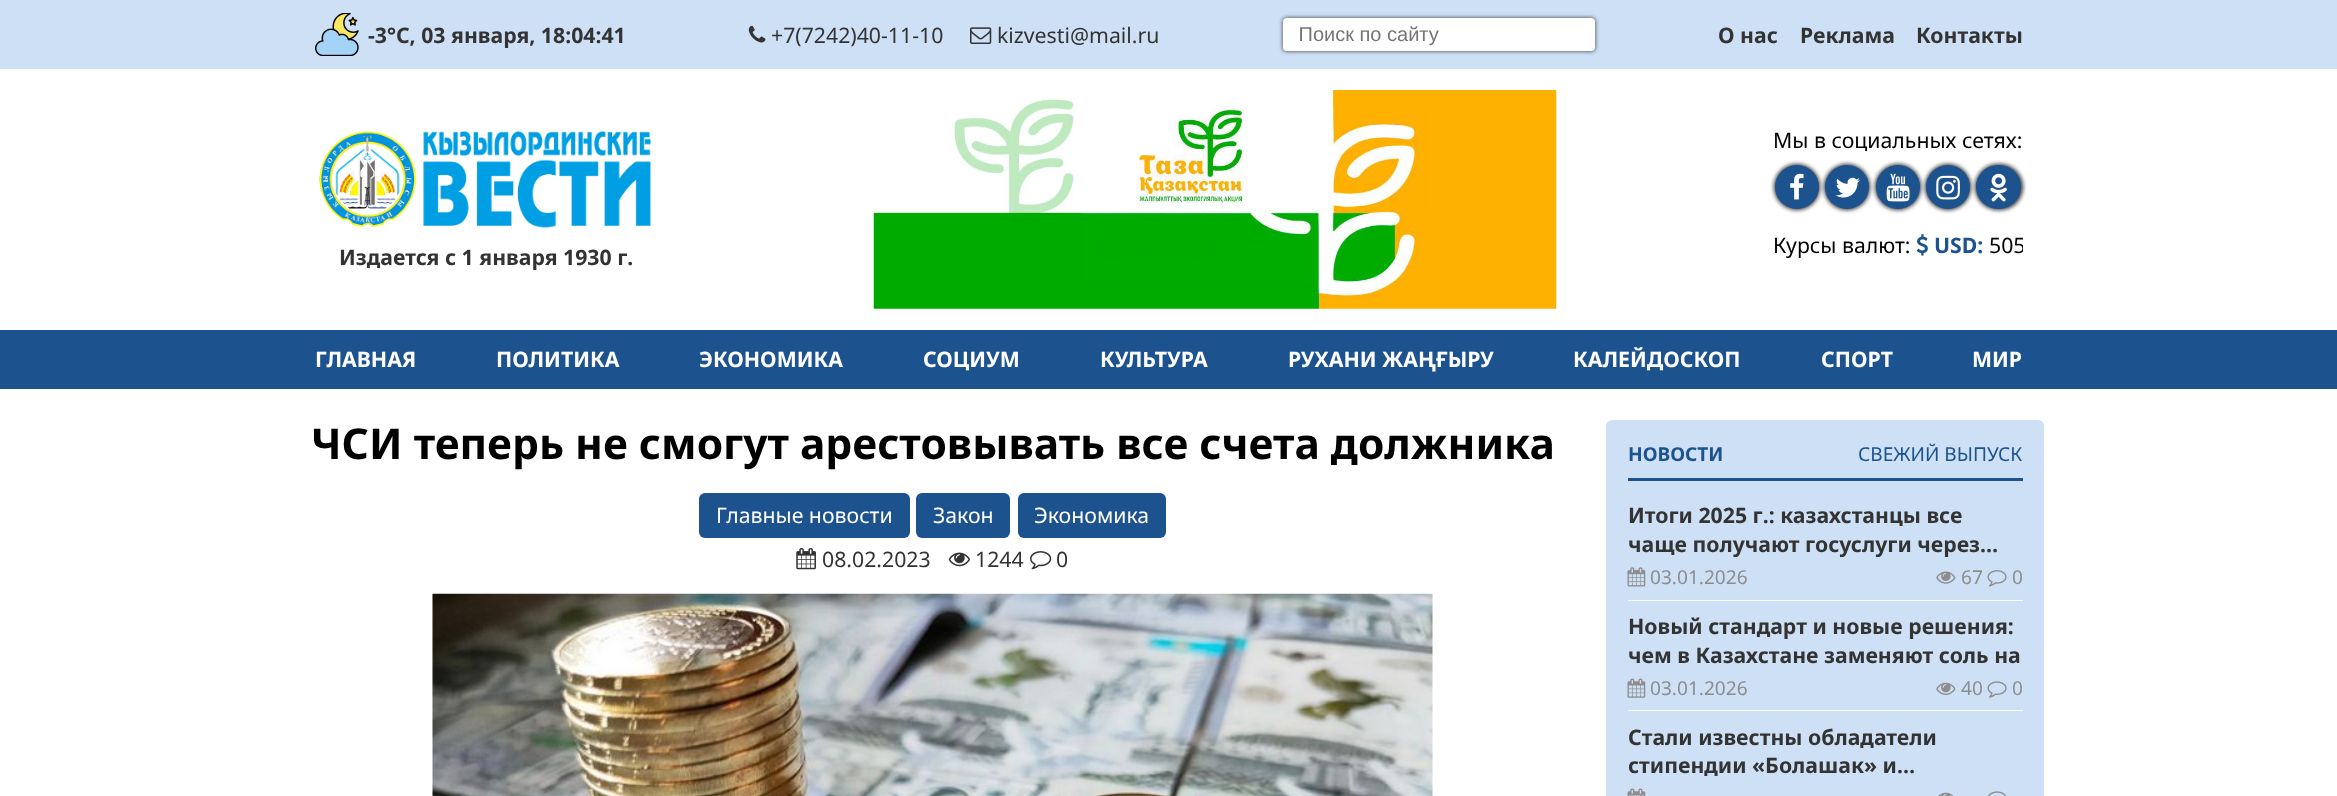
async function draw(canvas) {
	canvas.width = 2337;
	canvas.height = 796;
	const c = canvas.getContext('2d');
	c.miterLimit = 4;
	c.fontKerning = 'normal';
	async function loadImage(src) {
		const img = new Image();
		img.src = src;
		await img.decode();
		return img;
	}

	c.fillStyle = '#fff';
	c.fillRect(0, 0, 2337, 796);
	c.fillStyle = '#cde0f5';
	c.fillRect(0, 0, 2337, 69);
	c.drawImage(await loadImage('img1.png'), 315, 13, 44, 43);
	c.font = 'bold 21.25px Noto Sans';
	c.fillStyle = '#333';
	c.fillText('-3°C, 03 января, 18:04:41', 368, 43);
	c.drawImage(await loadImage('img2.png'), 748, 25, 18, 18);
	c.font = '21.25px Noto Sans';
	c.fillText('+7(7242)40-11-10', 771, 43);
	c.drawImage(await loadImage('img3.png'), 970, 27, 22, 17);
	c.fillText('kizvesti@mail.ru', 997, 43);
	c.filter = 'blur(2px)';
	c.beginPath();
	c.roundRect(1283, 18, 312, 33, 4);
	c.fill();
	c.filter = 'none';
	c.fillStyle = '#fff';
	c.beginPath();
	c.roundRect(1283, 18, 312, 33, 4);
	c.fill();
	c.font = '20px Liberation Sans';
	c.fillStyle = '#757575';
	c.fillText(' Поиск по сайту', 1293, 41);
	c.font = 'bold 21.25px Noto Sans';
	c.fillStyle = '#333';
	for (const [text, x, y] of [
		['О нас', 1718, 43],
		['Реклама', 1800, 43],
		['Контакты', 1916, 43],
	]) {
		c.fillText(text, x, y);
	}
	c.drawImage(await loadImage('img4.png'), 319, 131, 333, 97);
	c.fillText('Издается с 1 января 1930 г.', 339, 265);
	c.drawImage(await loadImage('img5.png'), 873, 90, 684, 219);
	c.font = '21.25px Noto Sans';
	c.fillStyle = '#000';
	c.fillText('Мы в социальных сетях:', 1773, 148);
	c.fillStyle = '#333';
	c.filter = 'blur(2px)';
	c.beginPath();
	c.roundRect(1774, 164, 46, 46, 23);
	c.fill();
	c.filter = 'none';
	c.fillStyle = '#1c528d';
	c.beginPath();
	c.arc(1797, 187, 22, 0, 2 * Math.PI);
	c.fill();
	c.drawImage(await loadImage('img6.png'), 1790, 173, 14, 27);
	c.fillStyle = '#333';
	c.filter = 'blur(2px)';
	c.beginPath();
	c.roundRect(1824, 164, 46, 46, 23);
	c.fill();
	c.filter = 'none';
	c.fillStyle = '#1c528d';
	c.beginPath();
	c.arc(1847, 187, 22, 0, 2 * Math.PI);
	c.fill();
	c.drawImage(await loadImage('img7.png'), 1835, 177, 25, 21);
	c.fillStyle = '#333';
	c.filter = 'blur(2px)';
	c.beginPath();
	c.roundRect(1875, 164, 46, 46, 23);
	c.fill();
	c.filter = 'none';
	c.fillStyle = '#1c528d';
	c.beginPath();
	c.arc(1898, 187, 22, 0, 2 * Math.PI);
	c.fill();
	c.drawImage(await loadImage('img8.png'), 1886, 173, 24, 29);
	c.fillStyle = '#333';
	c.filter = 'blur(2px)';
	c.beginPath();
	c.roundRect(1925, 164, 46, 46, 23);
	c.fill();
	c.filter = 'none';
	c.fillStyle = '#1c528d';
	c.beginPath();
	c.arc(1948, 187, 22, 0, 2 * Math.PI);
	c.fill();
	c.drawImage(await loadImage('img9.png'), 1936, 175, 24, 25);
	c.fillStyle = '#333';
	c.filter = 'blur(2px)';
	c.beginPath();
	c.roundRect(1975, 164, 48, 46, 23);
	c.fill();
	c.filter = 'none';
	c.fillStyle = '#1c528d';
	c.beginPath();
	c.roundRect(1976, 165, 45, 44, 22);
	c.fill();
	c.drawImage(await loadImage('img10.png'), 1990, 173, 17, 29);
	c.fillStyle = '#000';
	c.fillText('Курсы валют:', 1773, 253);
	c.drawImage(await loadImage('img11.png'), 1916, 234, 12, 22);
	c.font = 'bold 21.25px Noto Sans';
	c.fillStyle = '#1c528d';
	c.fillText('USD:', 1934, 253);
	c.save();
	c.beginPath();
	c.rect(1773, 209, 250, 54);
	c.clip();
	c.font = '21.25px Noto Sans';
	c.fillStyle = '#000';
	c.fillText('505', 1989, 253);
	c.restore();
	c.fillRect(0, 330, 2337, 59);
	c.fillStyle = '#fff';
	for (const [text, x, y] of [
		['ГЛАВНАЯ', 315, 367],
		['ПОЛИТИКА', 496, 367],
		['ЭКОНОМИКА', 699, 367],
		['СОЦИУМ', 923, 367],
		['КУЛЬТУРА', 1100, 367],
		['РУХАНИ ЖАҢҒЫРУ', 1288, 367],
		['КАЛЕЙДОСКОП', 1573, 367],
		['СПОРТ', 1821, 367],
		['МИР', 1972, 367],
	]) {
		c.fillText(text, x, y);
	}
	c.font = 'bold 42.5px Noto Sans';
	c.fillStyle = '#000';
	c.fillText('ЧСИ теперь не смогут арестовывать все счета должника', 311, 459);
	c.fillStyle = '#1c528d';
	c.beginPath();
	c.roundRect(699, 493, 211, 45, 6);
	c.fill();
	c.font = '21.25px Noto Sans';
	c.fillStyle = '#fff';
	c.fillText('Главные новости', 716, 523);
	c.fillStyle = '#1c528d';
	c.beginPath();
	c.roundRect(916, 493, 94, 45, 6);
	c.fill();
	c.fillStyle = '#fff';
	c.fillText('Закон', 933, 523);
	c.fillStyle = '#1c528d';
	c.beginPath();
	c.roundRect(1018, 493, 148, 45, 6);
	c.fill();
	c.fillStyle = '#fff';
	c.fillText('Экономика', 1034, 523);
	c.drawImage(await loadImage('img12.png'), 796, 548, 20, 22);
	c.fillStyle = '#333';
	c.fillText('08.02.2023', 822, 567);
	c.drawImage(await loadImage('img13.png'), 948, 552, 22, 15);
	c.fillText('1244', 975, 567);
	c.drawImage(await loadImage('img14.png'), 1030, 551, 22, 19);
	c.fillText('0', 1056, 567);
	c.drawImage(await loadImage('img15.png'), 432, 593, 1001, 203);
	c.fillStyle = '#cde0f5';
	c.beginPath();
	c.roundRect(1606, 420, 438, 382, 6);
	c.fill();
	c.fillStyle = '#1c528d';
	c.fillRect(1628, 478, 395, 3);
	c.font = 'bold 19.1px Noto Sans';
	c.fillText('НОВОСТИ', 1628, 461);
	c.font = '19.1px Noto Sans';
	c.fillText('СВЕЖИЙ ВЫПУСК', 1858, 461);
	c.fillStyle = '#fff';
	c.fillRect(1628, 600, 395, 1);
	c.font = 'bold 21.25px Noto Sans';
	c.fillStyle = '#333';
	c.fillText('Итоги 2025 г.: казахстанцы все', 1628, 523);
	c.fillText('чаще получают госуслуги через…', 1628, 552);
	c.drawImage(await loadImage('img16.png'), 1627, 567, 19, 20);
	c.font = '19.1px Noto Sans';
	c.fillStyle = '#8d8d8d';
	c.fillText('03.01.2026', 1650, 584);
	c.drawImage(await loadImage('img17.png'), 1936, 571, 20, 13);
	c.fillText('67', 1961, 584);
	c.drawImage(await loadImage('img18.png'), 1987, 570, 20, 17);
	c.fillText('0', 2012, 584);
	c.fillStyle = '#fff';
	c.fillRect(1628, 710, 395, 1);
	c.font = 'bold 21.25px Noto Sans';
	c.fillStyle = '#333';
	c.fillText('Новый стандарт и новые решения:', 1628, 634);
	c.fillText('чем в Казахстане заменяют соль на', 1628, 663);
	c.drawImage(await loadImage('img19.png'), 1627, 678, 19, 20);
	c.font = '19.1px Noto Sans';
	c.fillStyle = '#8d8d8d';
	c.fillText('03.01.2026', 1650, 695);
	c.drawImage(await loadImage('img20.png'), 1936, 682, 20, 13);
	c.fillText('40', 1961, 695);
	c.drawImage(await loadImage('img21.png'), 1987, 681, 20, 17);
	c.fillText('0', 2012, 695);
	c.font = 'bold 21.25px Noto Sans';
	c.fillStyle = '#333';
	c.fillText('Стали известны обладатели', 1628, 745);
	c.fillText('стипендии «Болашак» и…', 1628, 773);
	c.drawImage(await loadImage('img22.png'), 1627, 788, 19, 8);
	c.drawImage(await loadImage('img23.png'), 1938, 792, 16, 4);
	c.drawImage(await loadImage('img24.png'), 1988, 791, 18, 5);
}

draw(document.querySelector('canvas'));
